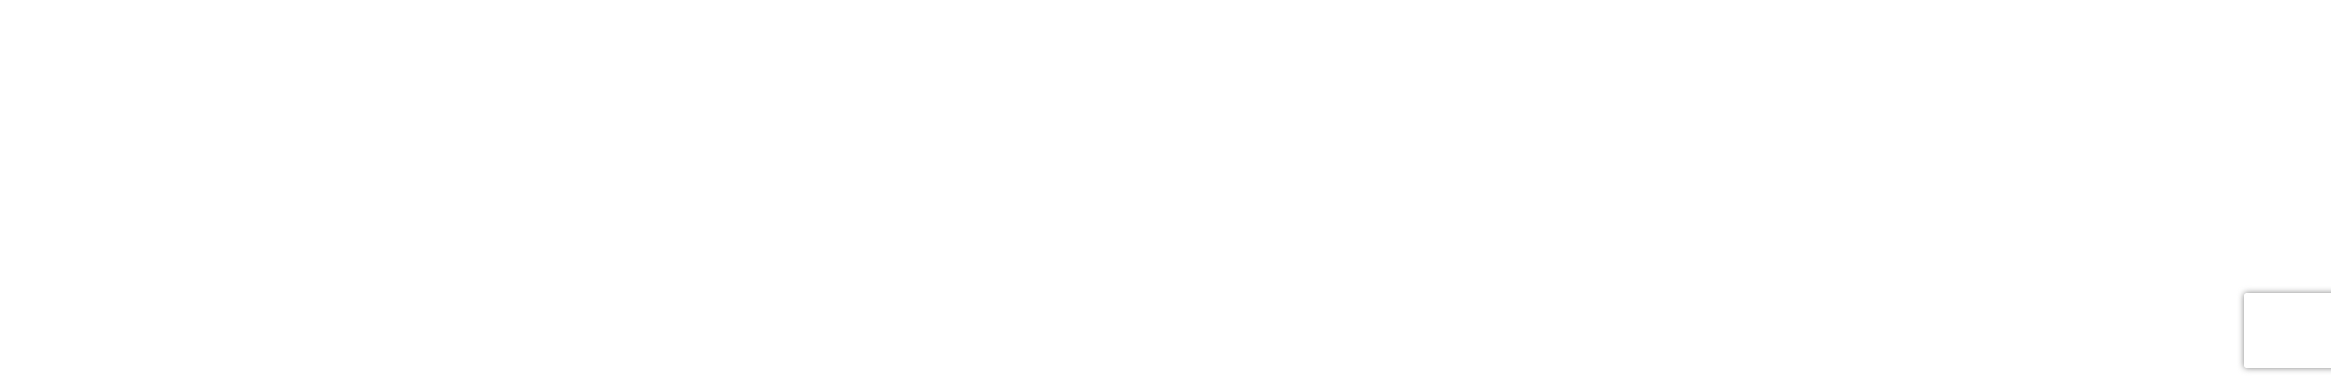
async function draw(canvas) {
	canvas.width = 2331;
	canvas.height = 384;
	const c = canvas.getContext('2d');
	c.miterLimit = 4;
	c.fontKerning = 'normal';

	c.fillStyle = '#fff';
	c.fillRect(0, 0, 2331, 384);
	c.save();
	c.beginPath();
	c.moveTo(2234, 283);
	c.lineTo(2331, 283);
	c.lineTo(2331, 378);
	c.lineTo(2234, 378);
	c.closePath();
	c.moveTo(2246.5, 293);
	c.lineTo(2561.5, 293);
	c.bezierCurveTo(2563, 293, 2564, 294, 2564, 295.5);
	c.lineTo(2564, 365.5);
	c.bezierCurveTo(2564, 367, 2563, 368, 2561.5, 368);
	c.lineTo(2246.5, 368);
	c.bezierCurveTo(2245, 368, 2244, 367, 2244, 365.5);
	c.lineTo(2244, 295.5);
	c.bezierCurveTo(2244, 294, 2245, 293, 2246.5, 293);
	c.closePath();
	c.clip('evenodd');
	c.fillStyle = '#808080';
	c.filter = 'blur(3px)';
	c.beginPath();
	c.roundRect(2244, 293, 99, 75, 2.5);
	c.fill();
	c.filter = 'none';
	c.restore();
}

draw(document.querySelector('canvas'));
